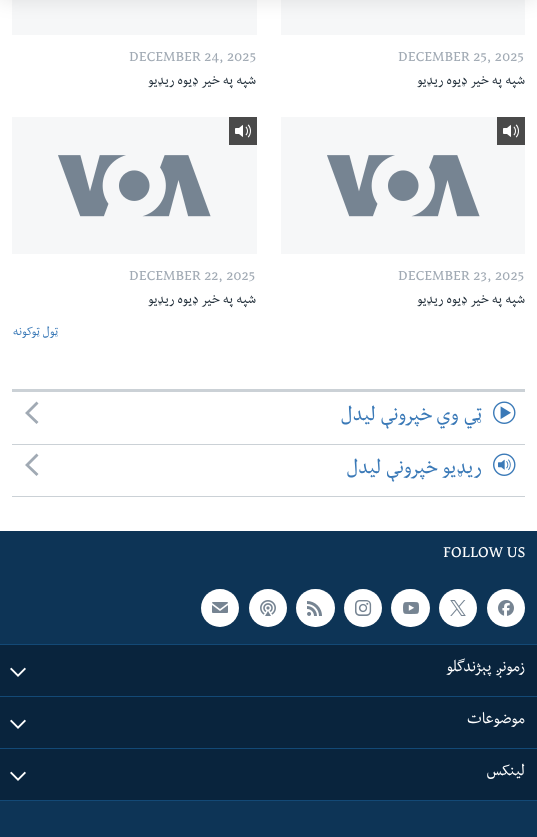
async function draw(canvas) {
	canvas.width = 537;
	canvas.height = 837;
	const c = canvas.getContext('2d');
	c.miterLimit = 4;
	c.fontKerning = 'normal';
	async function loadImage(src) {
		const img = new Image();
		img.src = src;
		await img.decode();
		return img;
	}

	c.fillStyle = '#fff';
	c.fillRect(0, 0, 537, 837);
	c.fillStyle = '#f6f7f8';
	c.fillRect(281, 0, 244, 35);
	c.fillRect(12, 0, 245, 35);
	c.fillStyle = '#0000001a';
	c.filter = 'blur(10px)';
	c.beginPath();
	c.rect(0, -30, 537, 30);
	c.fill();
	c.filter = 'none';
	c.font = '17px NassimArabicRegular';
	c.fillStyle = '#a1aab4';
	c.fillText('DECEMBER 25, 2025', 398, 61);
	c.direction = 'rtl';
	c.font = '15.75px NassimArabicRegular';
	c.fillStyle = '#222f3a';
	c.fillText('شپه په خیر ډیوه ریډیو', 525, 84);
	c.direction = 'ltr';
	c.font = '17px NassimArabicRegular';
	c.fillStyle = '#a1aab4';
	c.fillText('DECEMBER 24, 2025', 129, 61);
	c.direction = 'rtl';
	c.font = '15.75px NassimArabicRegular';
	c.fillStyle = '#222f3a';
	c.fillText('شپه په خیر ډیوه ریډیو', 256, 84);
	c.fillStyle = '#f6f7f8';
	c.fillRect(281, 117, 244, 137);
	c.drawImage(await loadImage('img1.png'), 327, 155, 153, 62);
	c.fillStyle = '#4a4a4a';
	c.fillRect(497, 117, 28, 28);
	c.drawImage(await loadImage('img2.png'), 503, 124, 16, 14);
	c.direction = 'ltr';
	c.font = '17px NassimArabicRegular';
	c.fillStyle = '#a1aab4';
	c.fillText('DECEMBER 23, 2025', 398, 280);
	c.direction = 'rtl';
	c.font = '15.75px NassimArabicRegular';
	c.fillStyle = '#222f3a';
	c.fillText('شپه په خیر ډیوه ریډیو', 525, 303);
	c.fillStyle = '#f6f7f8';
	c.fillRect(12, 117, 245, 137);
	c.drawImage(await loadImage('img1.png'), 58, 155, 153, 62);
	c.fillStyle = '#4a4a4a';
	c.fillRect(229, 117, 28, 28);
	c.drawImage(await loadImage('img2.png'), 235, 124, 16, 14);
	c.direction = 'ltr';
	c.font = '17px NassimArabicRegular';
	c.fillStyle = '#a1aab4';
	c.fillText('DECEMBER 22, 2025', 129, 280);
	c.direction = 'rtl';
	c.font = '15.75px NassimArabicRegular';
	c.fillStyle = '#222f3a';
	c.fillText('شپه په خیر ډیوه ریډیو', 256, 303);
	c.font = '14.5px NassimArabicRegular';
	c.fillStyle = '#3a79b7';
	c.fillText('ټول ټوکونه', 58, 335);
	c.fillStyle = '#cbd1d6';
	c.fillRect(12, 389, 513, 3);
	c.fillRect(12, 444, 513, 1);
	c.drawImage(await loadImage('img3.png'), 493, 401, 23, 23);
	c.font = '23.75px NassimArabicRegular';
	c.fillStyle = '#3a79b7';
	c.fillText('ټي وي خپرونې لیدل', 482, 420);
	c.fillStyle = '#a1aab4';
	c.beginPath();
	c.moveTo(36.5, 401.5);
	c.lineTo(25, 413);
	c.lineTo(36.5, 424);
	c.lineTo(38.5, 422);
	c.lineTo(29, 413);
	c.lineTo(38.5, 403.5);
	c.closePath();
	c.fill();
	c.fillStyle = '#cbd1d6';
	c.fillRect(12, 496, 513, 1);
	c.drawImage(await loadImage('img4.png'), 493, 453, 23, 23);
	c.fillStyle = '#3a79b7';
	c.fillText('ریډیو خپرونې لیدل', 482, 473);
	c.fillStyle = '#a1aab4';
	c.beginPath();
	c.moveTo(36.5, 453.5);
	c.lineTo(25, 465);
	c.lineTo(36.5, 476);
	c.lineTo(38.5, 474);
	c.lineTo(29, 465);
	c.lineTo(38.5, 455.5);
	c.closePath();
	c.fill();
	c.fillStyle = '#0d3456';
	c.fillRect(0, 531, 537, 306);
	c.fillStyle = '#134976';
	c.fillRect(0, 800, 537, 1);
	c.direction = 'ltr';
	c.font = '18.5px NassimArabicRegular';
	c.fillStyle = '#fff';
	c.fillText('FOLLOW US', 443, 557);
	c.beginPath();
	c.arc(506, 608, 19, 0, 2 * Math.PI);
	c.fill();
	c.drawImage(await loadImage('img5.png'), 498, 600, 16, 16);
	c.beginPath();
	c.arc(458, 608, 19, 0, 2 * Math.PI);
	c.fill();
	c.drawImage(await loadImage('img6.png'), 450, 600, 16, 16);
	c.beginPath();
	c.roundRect(391, 589, 39, 38, 19);
	c.fill();
	c.drawImage(await loadImage('img7.png'), 403, 602, 16, 12);
	c.beginPath();
	c.arc(363, 608, 19, 0, 2 * Math.PI);
	c.fill();
	c.drawImage(await loadImage('img8.png'), 355, 600, 17, 16);
	c.beginPath();
	c.roundRect(296, 589, 39, 38, 19);
	c.fill();
	c.drawImage(await loadImage('img9.png'), 307, 601, 15, 15);
	c.beginPath();
	c.arc(268, 608, 19, 0, 2 * Math.PI);
	c.fill();
	c.drawImage(await loadImage('img10.png'), 260, 600, 16, 16);
	c.beginPath();
	c.arc(220, 608, 19, 0, 2 * Math.PI);
	c.fill();
	c.drawImage(await loadImage('img11.png'), 212, 602, 16, 11);
	c.fillStyle = '#134976';
	c.fillRect(0, 644, 537, 1);
	c.fillStyle = '#09243d';
	c.fillRect(0, 645, 537, 51);
	c.direction = 'rtl';
	c.fillStyle = '#fff';
	c.fillText('زمونږ پېژندگلو', 525, 671);
	c.drawImage(await loadImage('img12.png'), 10, 667, 16, 10);
	c.fillStyle = '#134976';
	c.fillRect(0, 696, 537, 1);
	c.fillStyle = '#09243d';
	c.fillRect(0, 697, 537, 51);
	c.fillStyle = '#fff';
	c.fillText('موضوعات', 525, 723);
	c.drawImage(await loadImage('img12.png'), 10, 719, 16, 10);
	c.fillStyle = '#134976';
	c.fillRect(0, 748, 537, 1);
	c.fillStyle = '#09243d';
	c.fillRect(0, 749, 537, 51);
	c.fillStyle = '#fff';
	c.fillText('لینکس', 525, 775);
	c.drawImage(await loadImage('img12.png'), 10, 771, 16, 10);
}

draw(document.querySelector('canvas'));
